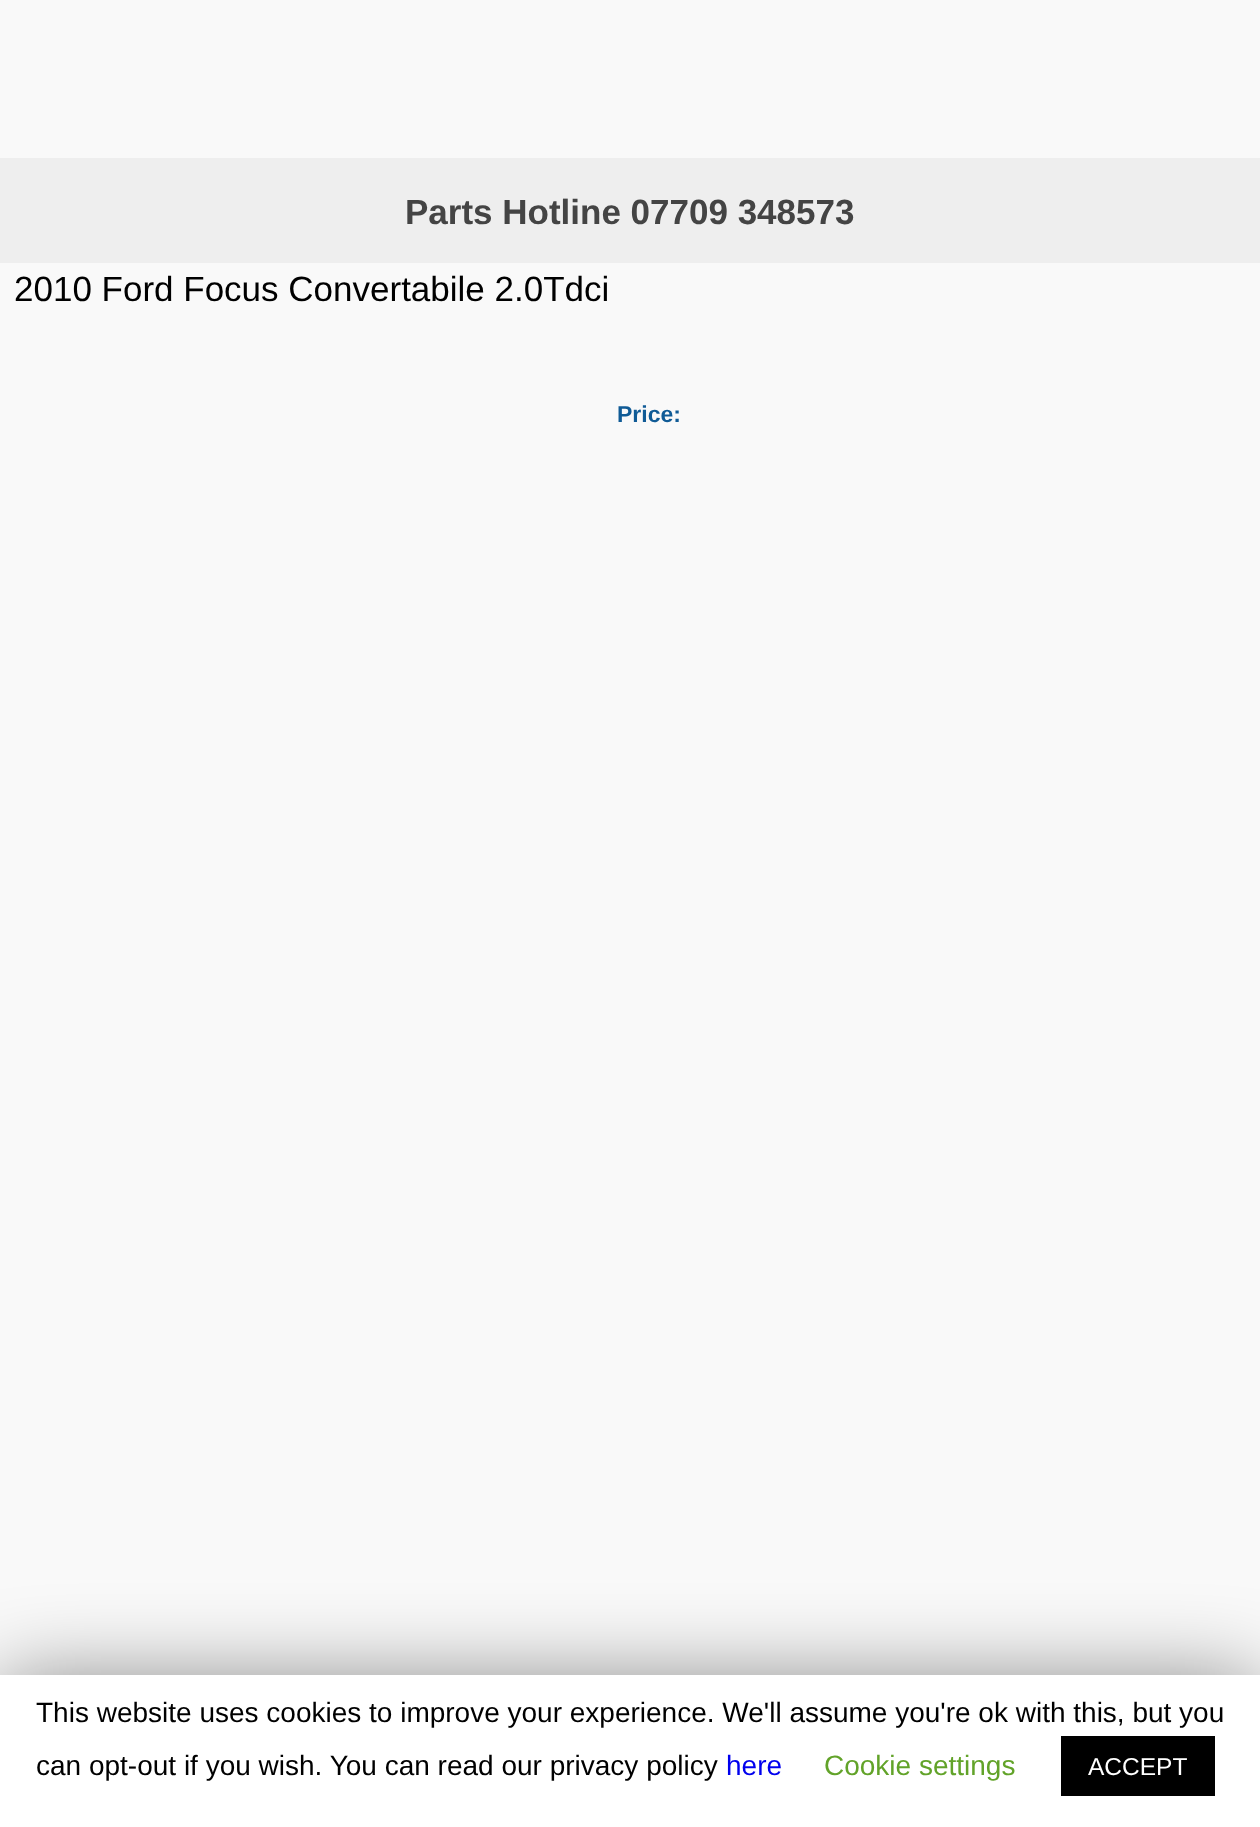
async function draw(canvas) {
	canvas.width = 1260;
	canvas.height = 1827;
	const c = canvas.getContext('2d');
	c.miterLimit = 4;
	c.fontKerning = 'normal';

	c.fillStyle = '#f9f9f9';
	c.fillRect(0, 0, 1260, 1827);
	c.fillStyle = '#eee';
	c.fillRect(0, 158, 1260, 105);
	c.font = 'bold 35px Liberation Sans';
	c.fillStyle = '#444';
	c.fillText('Parts Hotline 07709 348573', 405, 224);
	c.font = '35px Liberation Sans';
	c.fillStyle = '#000';
	c.fillText('2010 Ford Focus Convertabile 2.0Tdci', 14, 301);
	c.font = 'bold 23px Liberation Sans';
	c.fillStyle = '#105b96';
	c.fillText('Price:', 617, 422);
	c.fillStyle = '#00000080';
	c.filter = 'blur(44px)';
	c.beginPath();
	c.rect(0, 1684, 1260, 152);
	c.fill();
	c.filter = 'none';
	c.fillStyle = '#fff';
	c.fillRect(0, 1675, 1260, 152);
	c.font = '28px Liberation Sans';
	c.fillStyle = '#000';
	c.fillText('This website uses cookies to improve your experience. We\'ll assume you\'re ok with this, but you', 36, 1722);
	c.fillText('can opt-out if you wish. You can read our privacy policy', 36, 1775);
	c.fillStyle = '#00e';
	c.fillText('here', 726, 1775);
	c.fillStyle = '#62a329';
	c.fillText('Cookie settings', 824, 1775);
	c.fillStyle = '#000';
	c.fillRect(1061, 1736, 154, 60);
	c.font = '24.5px Liberation Sans';
	c.fillStyle = '#fff';
	c.fillText('ACCEPT', 1088, 1775);
}

draw(document.querySelector('canvas'));
